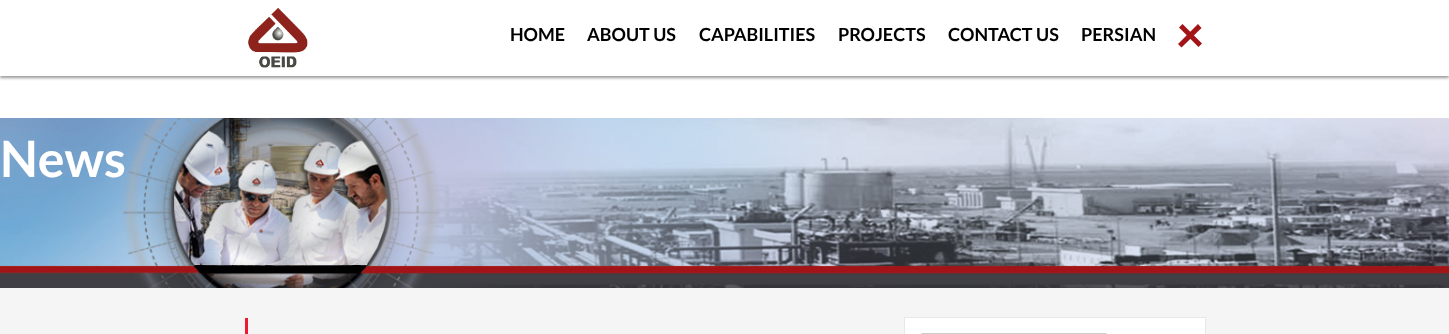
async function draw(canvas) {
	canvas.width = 1449;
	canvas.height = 334;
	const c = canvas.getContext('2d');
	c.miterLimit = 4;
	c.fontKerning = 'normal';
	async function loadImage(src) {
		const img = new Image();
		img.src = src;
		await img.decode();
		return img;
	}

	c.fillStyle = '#fff';
	c.fillRect(0, 0, 1449, 334);
	c.fillStyle = '#00000066';
	c.filter = 'blur(1.5px)';
	c.beginPath();
	c.rect(0, 2, 1449, 76);
	c.fill();
	c.filter = 'none';
	c.fillStyle = '#fff';
	c.fillRect(0, 0, 1449, 76);
	c.drawImage(await loadImage('img1.png'), 248, 7, 60, 61);
	c.font = 'bold 18px Lato';
	c.fillStyle = '#000';
	for (const [text, x, y] of [
		['HOME', 510, 41],
		['ABOUT US', 587, 41],
		['CAPABILITIES', 699, 41],
		['PROJECTS', 838, 41],
		['CONTACT US', 948, 41],
		['PERSIAN', 1081, 41],
	]) {
		c.fillText(text, x, y);
	}
	c.fillStyle = '#a21418';
	c.beginPath();
	c.moveTo(1182.5, 24);
	c.lineTo(1202, 43.5);
	c.lineTo(1198.5, 47);
	c.lineTo(1179, 27.5);
	c.closePath();
	c.fill();
	c.beginPath();
	c.moveTo(1178, 44);
	c.lineTo(1198, 24);
	c.lineTo(1201.5, 28);
	c.lineTo(1181.5, 47.5);
	c.closePath();
	c.fill();
	c.fillStyle = '#f5f5f5';
	c.fillRect(0, 288, 1449, 46);
	c.drawImage(await loadImage('img2.png'), 0, 118, 1449, 170);
	c.font = 'bold 50px Lato';
	c.fillStyle = '#fff';
	c.fillText('News', 0, 177);
	c.fillStyle = '#ed1b2f';
	c.fillRect(245, 318, 3, 16);
	c.fillStyle = '#0000000d';
	c.filter = 'blur(0.5px)';
	c.beginPath();
	c.rect(904, 317, 302, 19);
	c.fill();
	c.filter = 'none';
	c.fillStyle = '#fff';
	c.fillRect(905, 318, 300, 16);
	c.beginPath();
	c.roundRect(921, 334, 186, 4, 2);
	c.strokeStyle = '#ccc';
	c.lineWidth = 2;
	c.stroke();
}

draw(document.querySelector('canvas'));
